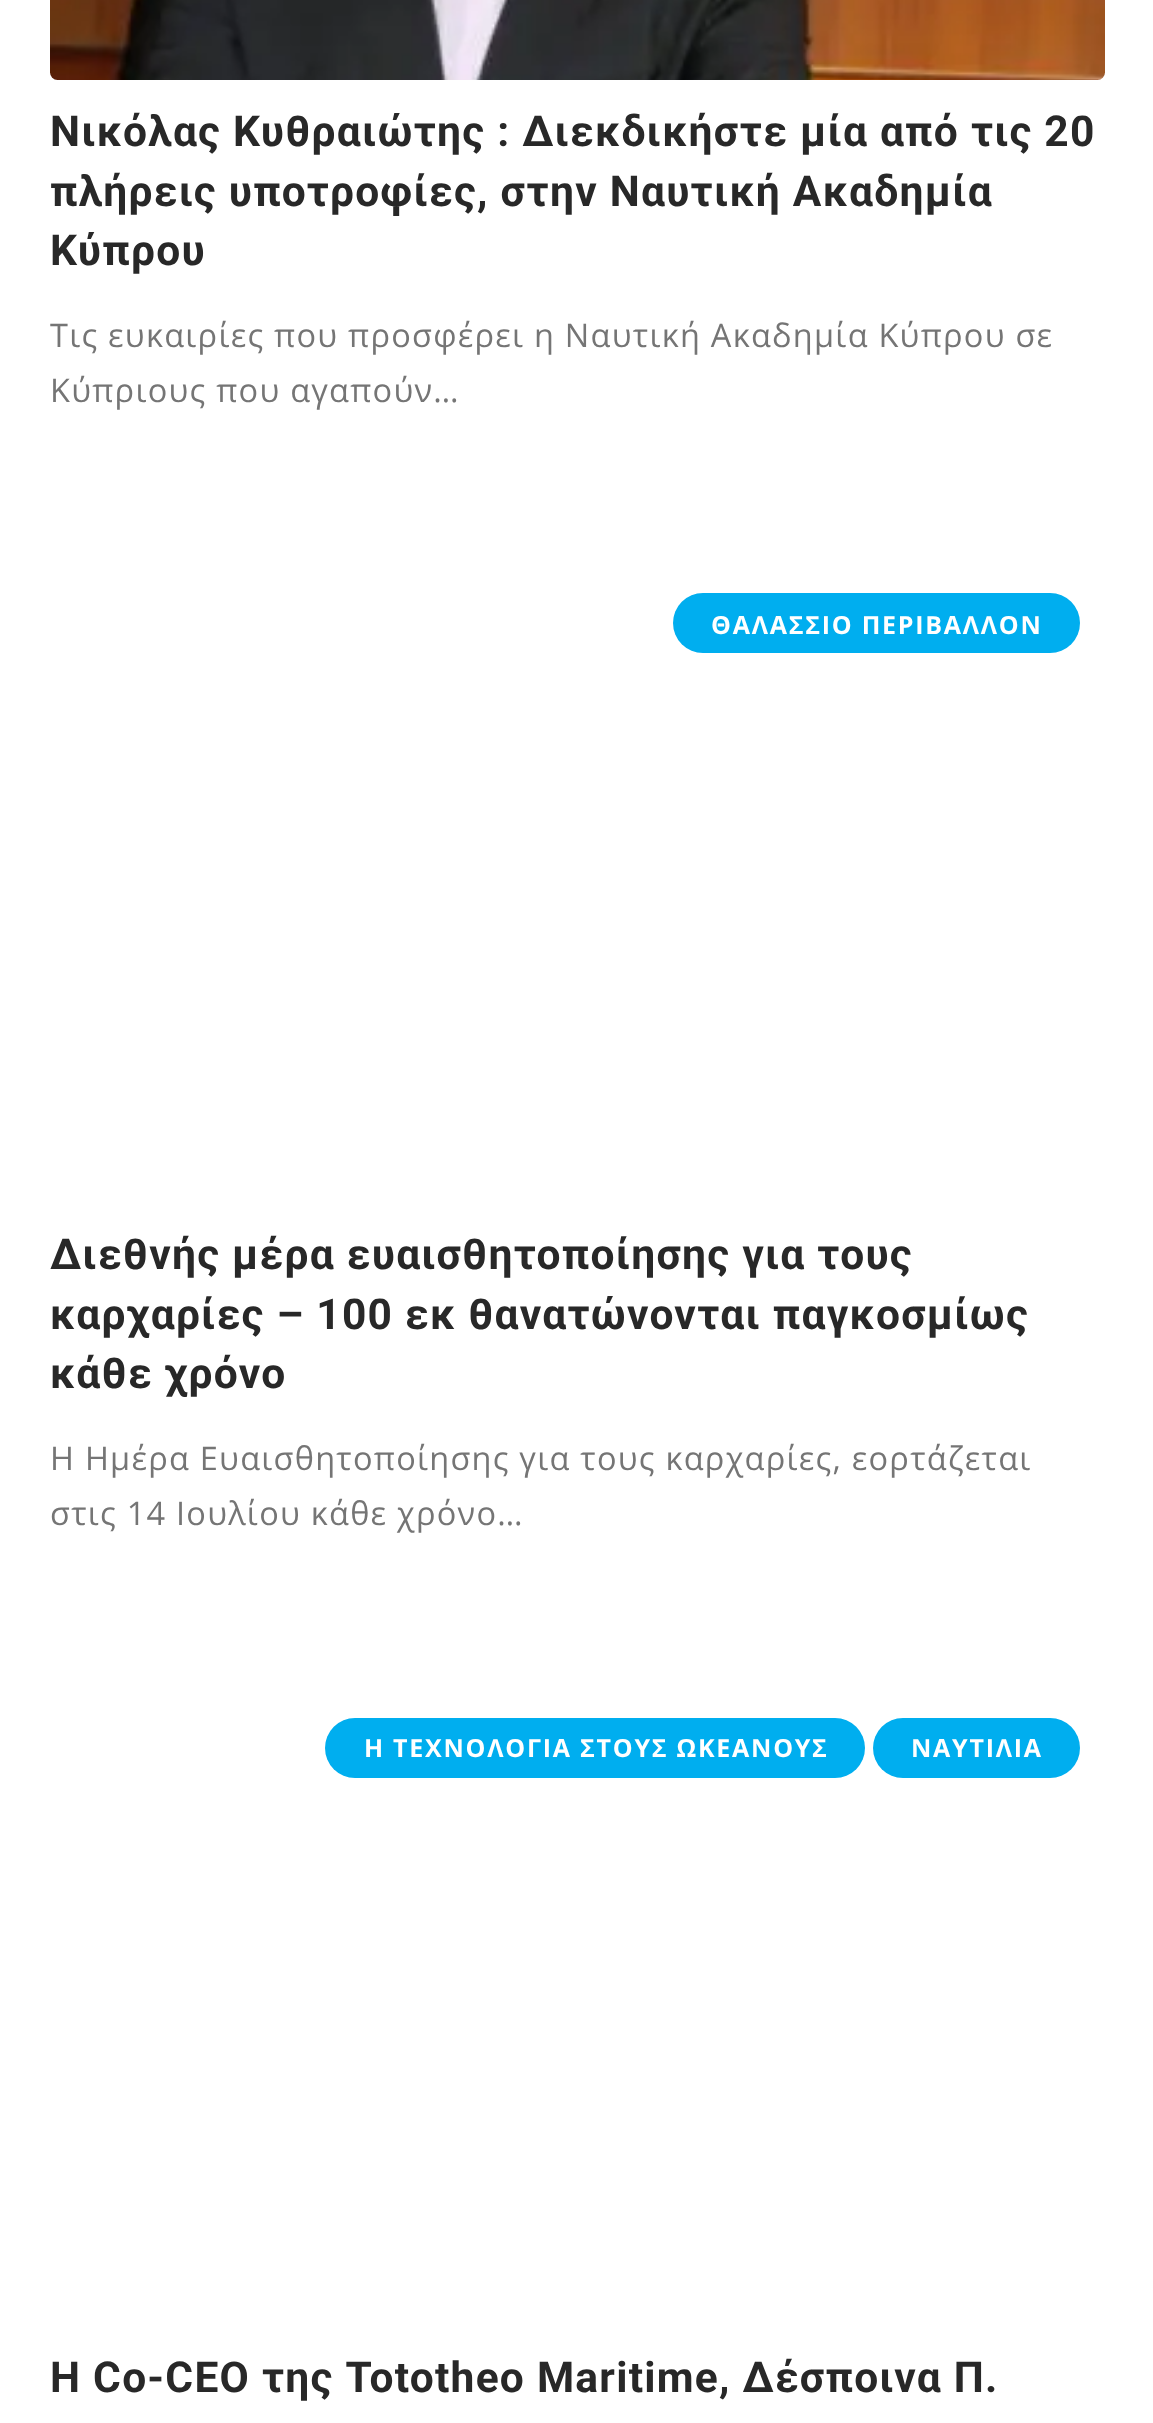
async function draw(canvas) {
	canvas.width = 1153;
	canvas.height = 2423;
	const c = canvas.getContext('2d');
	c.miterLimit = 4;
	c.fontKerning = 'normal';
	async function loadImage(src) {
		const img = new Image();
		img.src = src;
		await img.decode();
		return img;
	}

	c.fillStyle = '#fff';
	c.fillRect(0, 0, 1153, 2423);
	c.drawImage(await loadImage('img1.png'), 50, 0, 1055, 80);
	c.letterSpacing = '1.25px';
	c.font = 'bold 42.5px Roboto';
	c.fillStyle = '#282828';
	for (const [text, x, y] of [
		['Νικόλας Κυθραιώτης : Διεκδικήστε μία από τις 20', 50, 146],
		['πλήρεις υποτροφίες, στην Ναυτική Ακαδημία', 50, 206],
		['Κύπρου', 50, 265],
	]) {
		c.fillText(text, x, y);
	}
	c.font = '32.5px Open Sans';
	c.fillStyle = '#757575';
	c.fillText('Τις ευκαιρίες που προσφέρει η Ναυτική Ακαδημία Κύπρου σε', 50, 347);
	c.fillText('Κύπριους που αγαπούν…', 50, 402);
	c.fillStyle = '#00aeef';
	c.beginPath();
	c.roundRect(673, 593, 407, 60, 30);
	c.fill();
	c.letterSpacing = '1.75px';
	c.font = 'bold 25px Open Sans';
	c.fillStyle = '#fff';
	c.fillText('ΘΑΛΑΣΣΙΟ ΠΕΡΙΒΑΛΛΟΝ', 711, 634);
	c.letterSpacing = '1.25px';
	c.font = 'bold 42.5px Roboto';
	c.fillStyle = '#282828';
	for (const [text, x, y] of [
		['Διεθνής μέρα ευαισθητοποίησης για τους', 50, 1269],
		['καρχαρίες – 100 εκ θανατώνονται παγκοσμίως', 50, 1329],
		['κάθε χρόνο', 50, 1388],
	]) {
		c.fillText(text, x, y);
	}
	c.font = '32.5px Open Sans';
	c.fillStyle = '#757575';
	c.fillText('Η Ημέρα Ευαισθητοποίησης για τους καρχαρίες, εορτάζεται', 50, 1470);
	c.fillText('στις 14 Ιουλίου κάθε χρόνο…', 50, 1525);
	c.fillStyle = '#00aeef';
	c.beginPath();
	c.roundRect(325, 1718, 540, 60, 30);
	c.fill();
	c.letterSpacing = '1.75px';
	c.font = 'bold 25px Open Sans';
	c.fillStyle = '#fff';
	c.fillText('Η ΤΕΧΝΟΛΟΓΙΑ ΣΤΟΥΣ ΩΚΕΑΝΟΥΣ', 364, 1757);
	c.fillStyle = '#00aeef';
	c.beginPath();
	c.roundRect(873, 1718, 207, 60, 30);
	c.fill();
	c.fillStyle = '#fff';
	c.fillText('ΝΑΥΤΙΛΙΑ', 911, 1757);
	c.letterSpacing = '1.25px';
	c.font = 'bold 42.5px Roboto';
	c.fillStyle = '#282828';
	c.fillText('Η Co-CEO της Tototheo Maritime, Δέσποινα Π.', 50, 2392);
}

draw(document.querySelector('canvas'));
